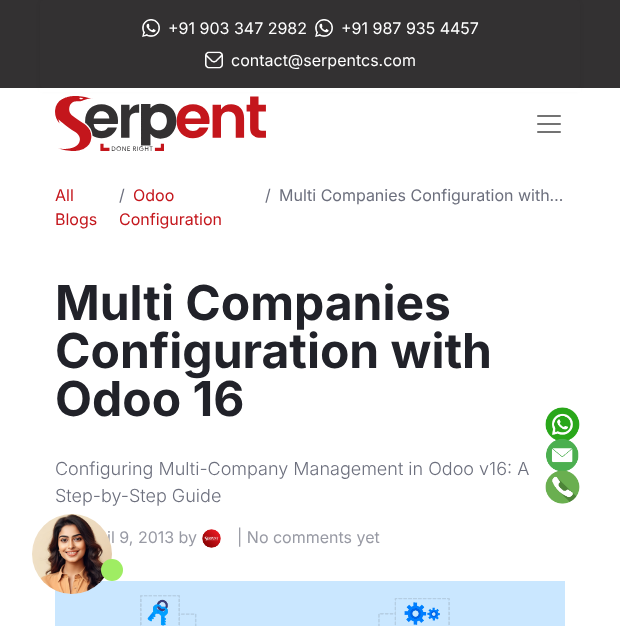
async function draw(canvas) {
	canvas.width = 620;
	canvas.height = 626;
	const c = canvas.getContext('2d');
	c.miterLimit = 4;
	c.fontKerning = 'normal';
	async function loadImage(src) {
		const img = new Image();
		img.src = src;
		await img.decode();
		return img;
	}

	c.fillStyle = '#fff';
	c.fillRect(0, 0, 620, 626);
	c.fillStyle = '#333132';
	c.fillRect(0, 0, 620, 88);
	c.save();
	c.beginPath();
	c.moveTo(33, 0);
	c.lineTo(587, 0);
	c.lineTo(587, 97);
	c.lineTo(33, 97);
	c.closePath();
	c.moveTo(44, 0);
	c.lineTo(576, 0);
	c.bezierCurveTo(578, 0, 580, 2, 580, 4);
	c.lineTo(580, 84);
	c.bezierCurveTo(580, 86, 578, 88, 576, 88);
	c.lineTo(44, 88);
	c.bezierCurveTo(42, 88, 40, 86, 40, 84);
	c.lineTo(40, 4);
	c.bezierCurveTo(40, 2, 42, 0, 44, 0);
	c.closePath();
	c.clip('evenodd');
	c.fillStyle = '#00000012';
	c.filter = 'blur(2px)';
	c.beginPath();
	c.roundRect(40, 2, 540, 88, 4);
	c.fill();
	c.filter = 'none';
	c.restore();
	c.drawImage(await loadImage('img1.png'), 142, 19, 18, 18);
	c.font = '16px Inter';
	c.fillStyle = '#fff';
	c.fillText('+91 903 347 2982', 168, 34);
	c.drawImage(await loadImage('img2.png'), 315, 19, 18, 18);
	c.fillText('+91 987 935 4457', 341, 34);
	c.drawImage(await loadImage('img3.png'), 205, 51, 18, 18);
	c.fillText('contact@serpentcs.com', 231, 66);
	c.fillRect(39, 88, 542, 4);
	c.drawImage(await loadImage('img4.png'), 55, 96, 211, 55);
	c.drawImage(await loadImage('img5.png'), 537, 115, 24, 18);
	c.fillStyle = '#c4161c';
	c.fillText('All', 55, 201);
	c.fillText('Blogs', 55, 225);
	c.fillStyle = '#6c6f7d';
	c.fillText('/', 119, 201);
	c.fillStyle = '#c4161c';
	c.fillText('Odoo', 133, 201);
	c.fillText('Configuration', 119, 225);
	c.fillStyle = '#6c6f7d';
	c.fillText('/', 265, 201);
	c.fillText('Multi Companies Configuration with…', 279, 201);
	c.font = 'bold 48px Inter';
	c.fillStyle = '#212229';
	for (const [text, x, y] of [
		['Multi Companies', 55, 320],
		['Configuration with', 55, 368],
		['Odoo 16', 55, 416],
	]) {
		c.fillText(text, x, y);
	}
	c.font = '300 18px Inter';
	c.fillStyle = '#6c6f7d';
	c.fillText('Configuring Multi-Company Management in Odoo v16: A', 55, 475);
	c.fillText('Step-by-Step Guide', 55, 502);
	c.font = '16px Inter';
	c.fillStyle = '#989aa4';
	c.fillText('il 9, 2013 by', 107, 543);
	c.drawImage(await loadImage('img6.png'), 202, 529, 19, 19);
	c.fillText('| No comments yet', 237, 543);
	c.drawImage(await loadImage('img7.png'), 55, 581, 510, 45);
	c.drawImage(await loadImage('img8.png'), 32, 514, 80, 80);
	c.fillStyle = '#9fed63';
	c.beginPath();
	c.arc(112, 570, 11, 0, 2 * Math.PI);
	c.fill();
	c.drawImage(await loadImage('img9.png'), 545, 407, 35, 34);
	c.drawImage(await loadImage('img10.png'), 546, 438, 33, 33);
	c.drawImage(await loadImage('img11.png'), 545, 470, 35, 34);
}

draw(document.querySelector('canvas'));
